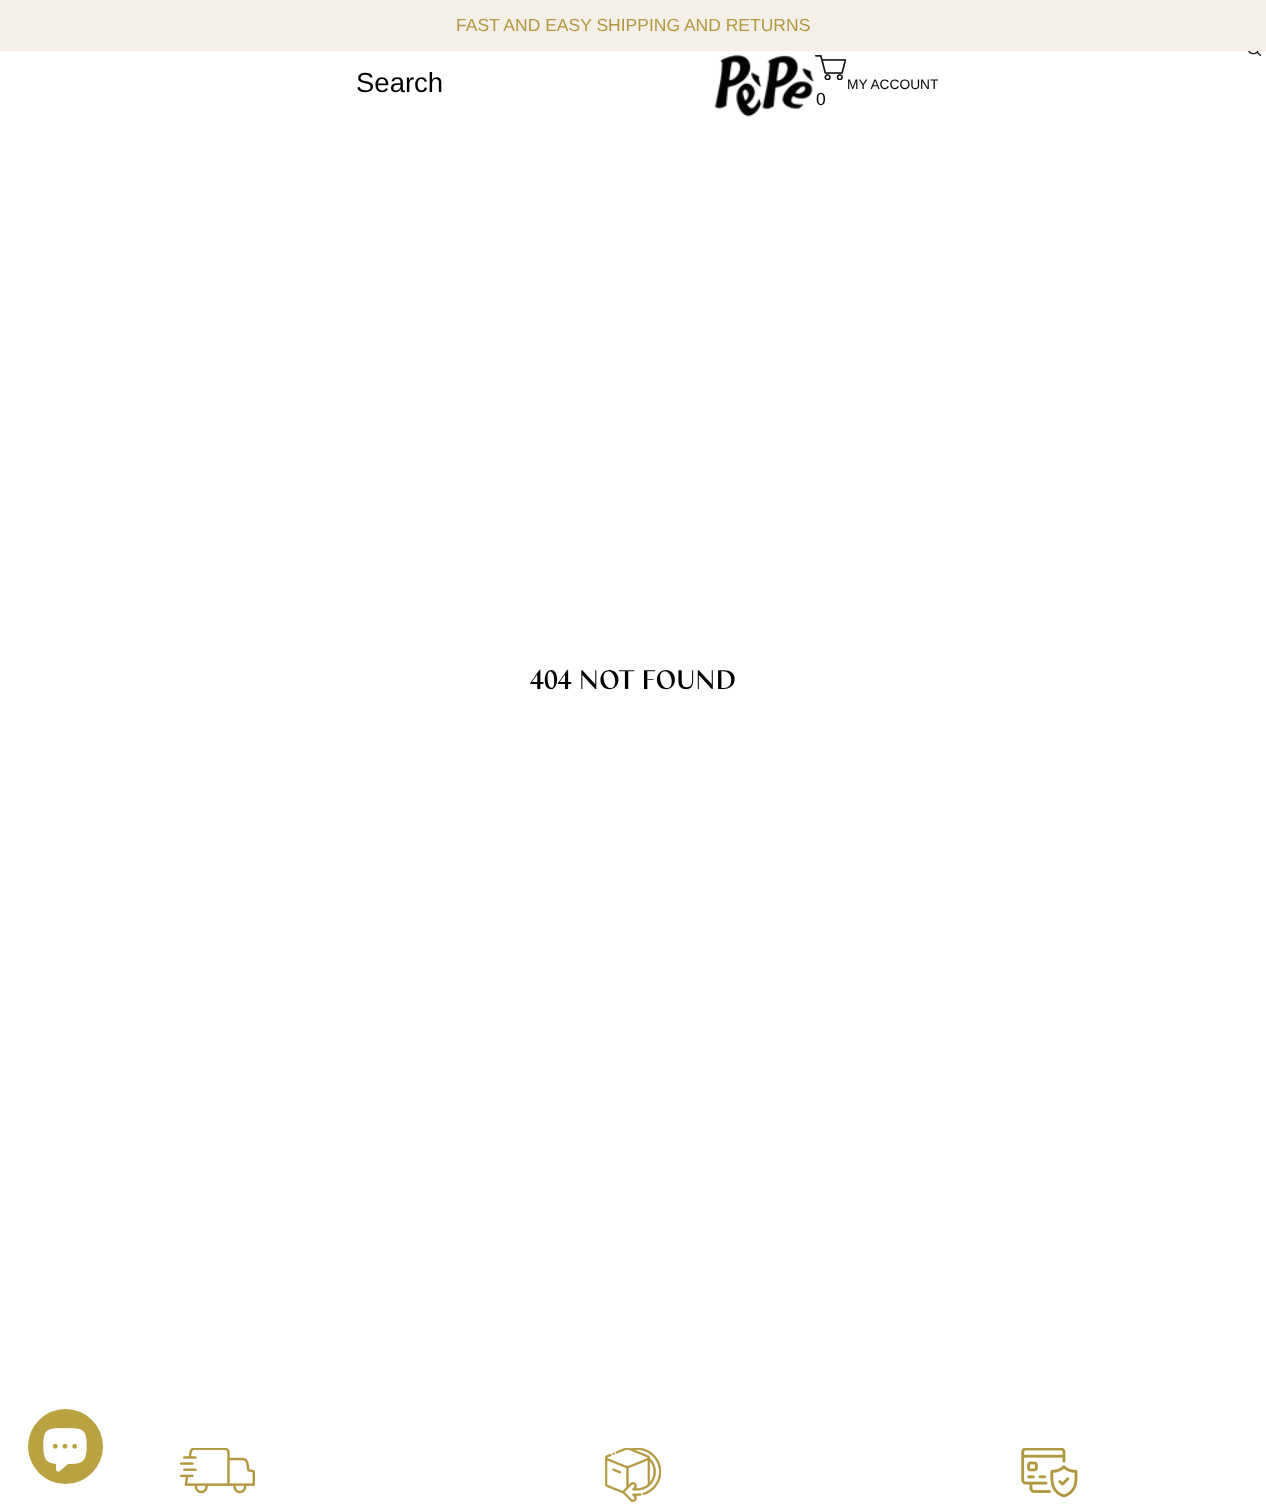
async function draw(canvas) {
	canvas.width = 1266;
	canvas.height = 1509;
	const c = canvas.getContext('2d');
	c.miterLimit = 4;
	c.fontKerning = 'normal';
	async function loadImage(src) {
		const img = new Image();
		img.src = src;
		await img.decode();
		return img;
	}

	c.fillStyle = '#fff';
	c.fillRect(0, 0, 1266, 1509);
	c.fillStyle = '#f4f0e8';
	c.fillRect(0, 0, 1266, 51);
	c.font = '17.5px Liberation Sans';
	c.fillStyle = '#b19840';
	c.fillText('FAST AND EASY SHIPPING AND RETURNS', 456, 31);
	c.drawImage(await loadImage('img1.png'), 1248, 51, 13, 5);
	c.font = '27.5px Liberation Sans';
	c.fillStyle = '#000';
	c.fillText('Search', 356, 92);
	c.drawImage(await loadImage('img2.png'), 715, 54, 99, 63);
	c.font = '13.75px Liberation Sans';
	c.fillText('MY ACCOUNT', 847, 89);
	c.drawImage(await loadImage('img3.png'), 815, 55, 31, 25);
	c.font = '17.5px Liberation Sans';
	c.fillText('0', 816, 105);
	c.font = '500 27.5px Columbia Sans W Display';
	c.fillText('404 NOT FOUND', 530, 689);
	c.drawImage(await loadImage('img4.png'), 180, 1448, 75, 46);
	c.drawImage(await loadImage('img5.png'), 605, 1448, 56, 54);
	c.drawImage(await loadImage('img6.png'), 1021, 1448, 57, 50);
	c.fillStyle = '#baa241';
	c.beginPath();
	c.arc(65.5, 1446.5, 37.5, 0, 2 * Math.PI);
	c.fill();
	c.drawImage(await loadImage('img7.png'), 43, 1428, 44, 44);
}

draw(document.querySelector('canvas'));
